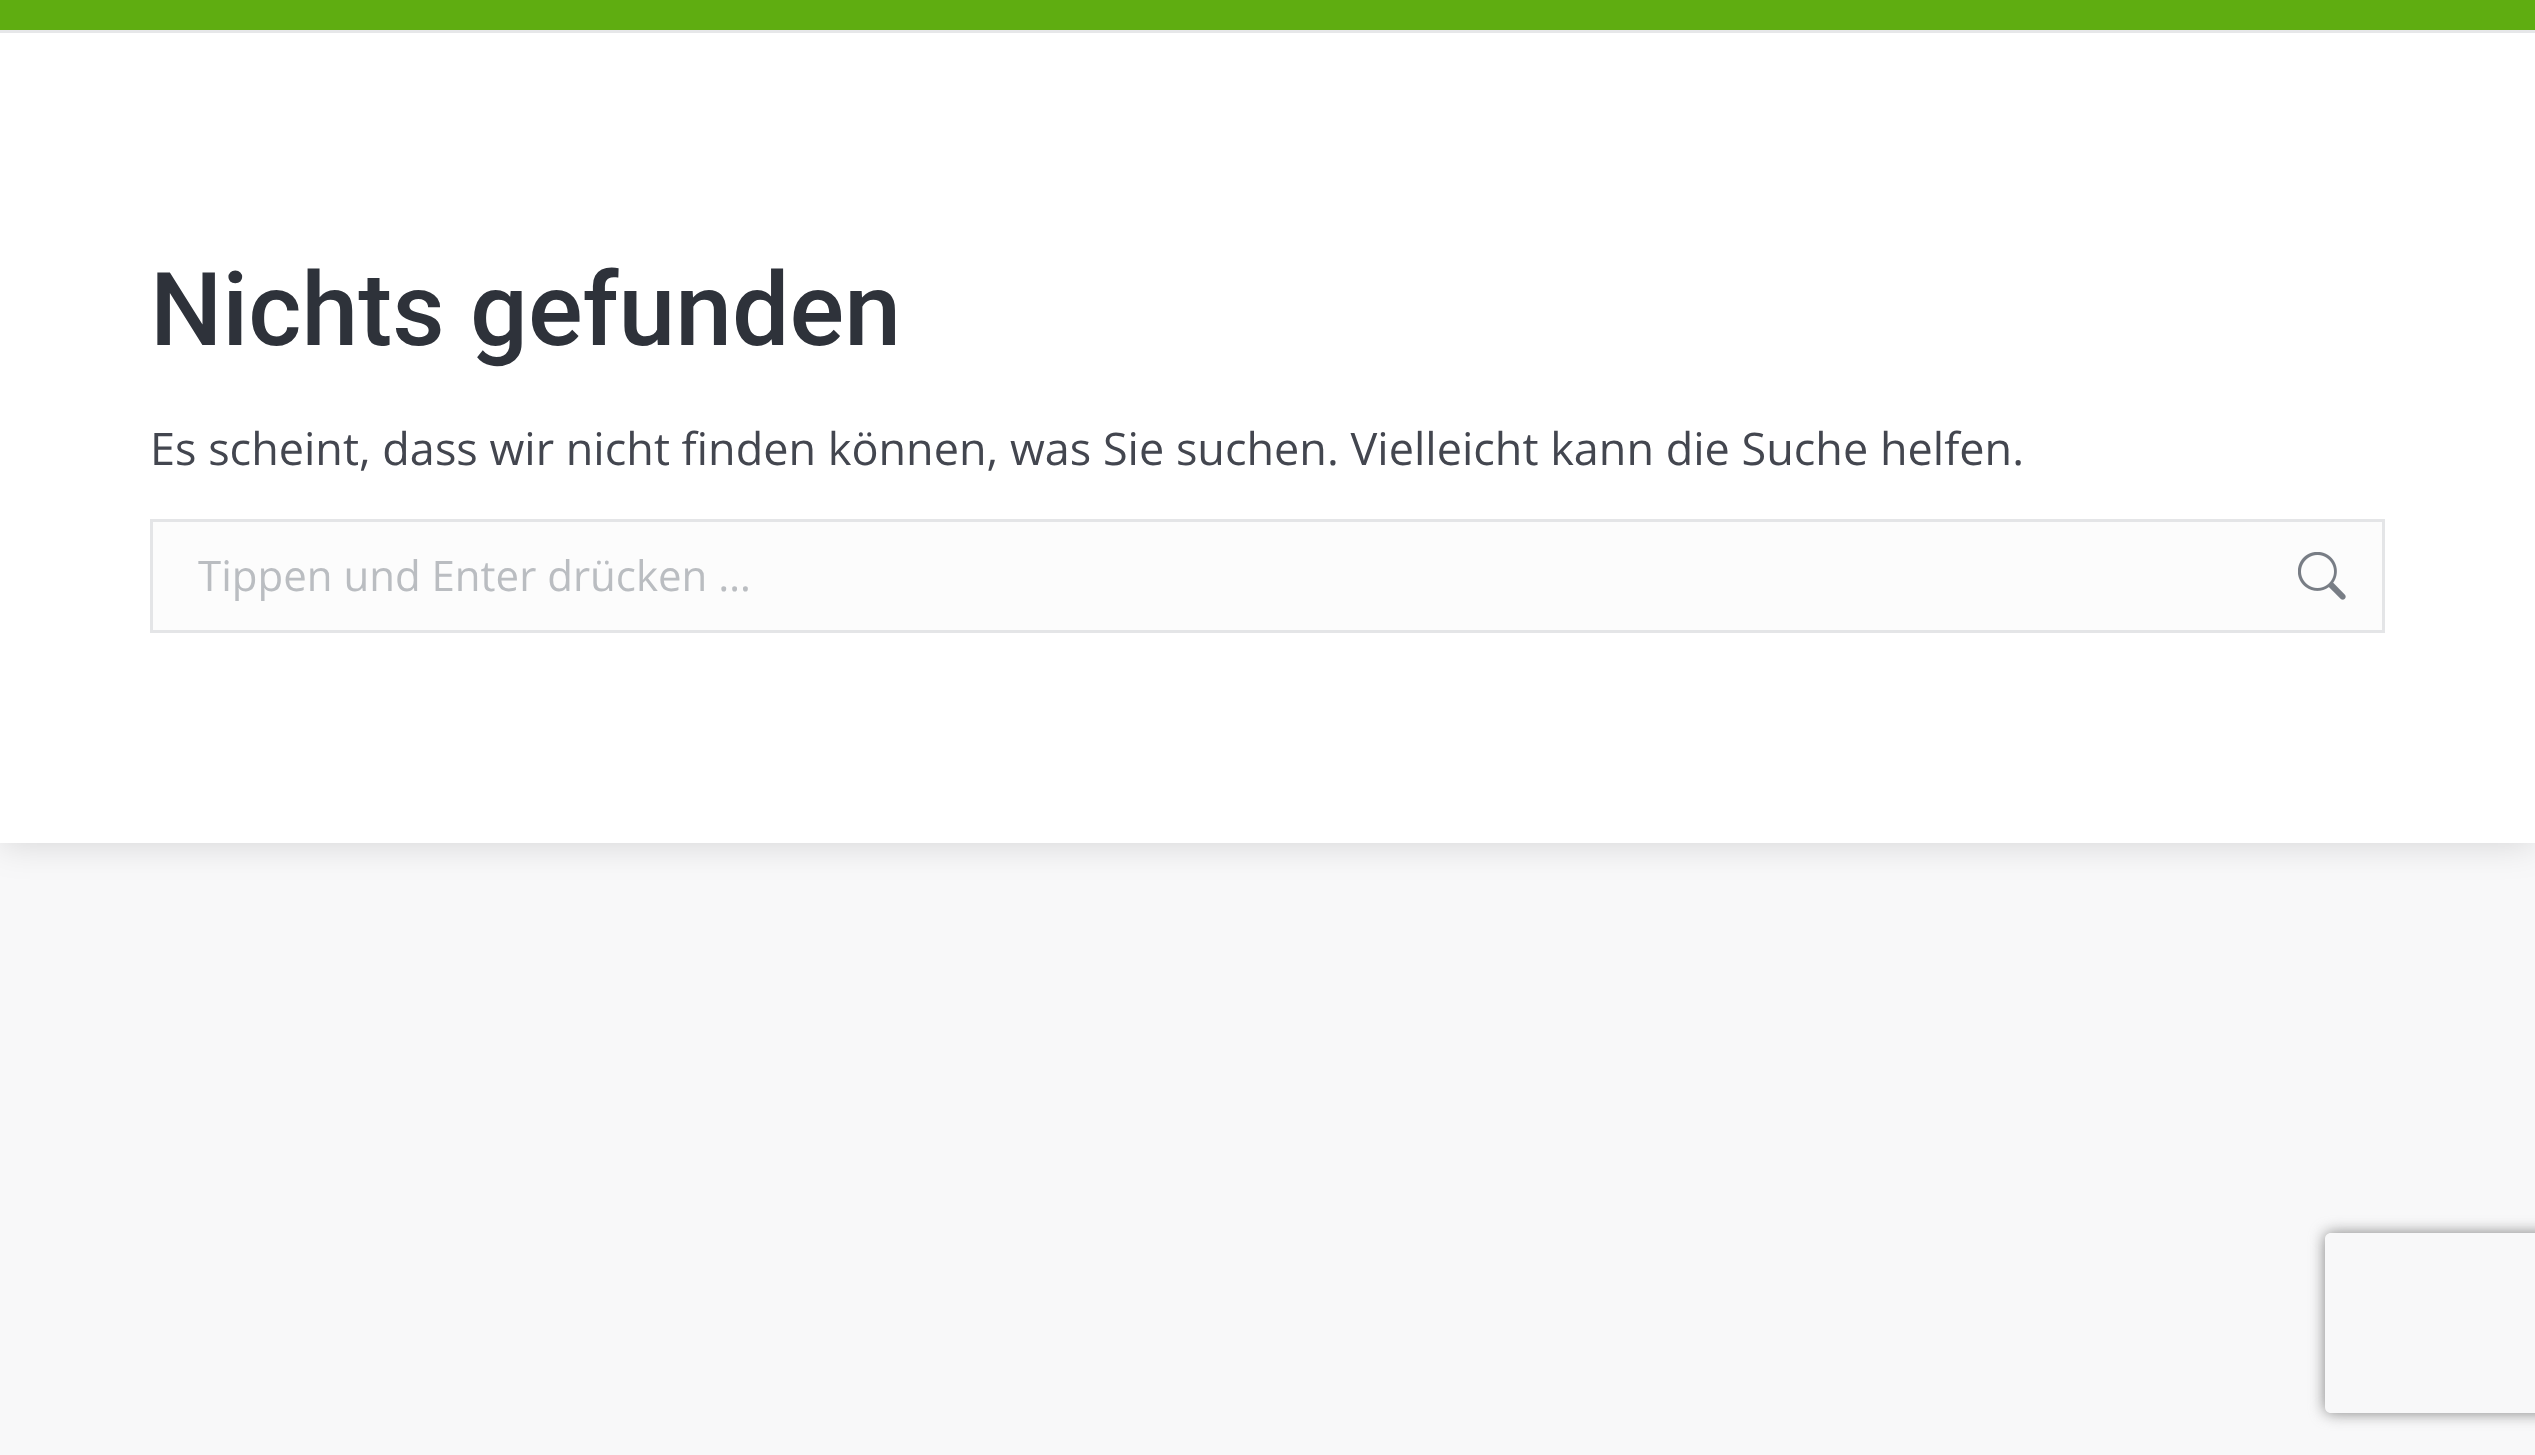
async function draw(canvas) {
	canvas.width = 2535;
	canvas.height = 1455;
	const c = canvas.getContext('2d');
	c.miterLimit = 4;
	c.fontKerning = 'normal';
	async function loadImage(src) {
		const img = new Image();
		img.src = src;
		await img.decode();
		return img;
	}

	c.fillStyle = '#f8f8f9';
	c.fillRect(0, 0, 2535, 1455);
	c.fillStyle = '#00000026';
	c.filter = 'blur(18px)';
	c.beginPath();
	c.rect(0, 0, 2535, 843);
	c.fill();
	c.filter = 'none';
	for (const [x, y, w, h, color] of [
		[0, 33, 2535, 810, '#fff'],
		[0, 30, 2535, 3, '#e6e7e9'],
		[0, 0, 2535, 30, '#5fad11'],
	]) {
		c.fillStyle = color;
		c.fillRect(x, y, w, h);
	}
	c.font = '500 102px Roboto';
	c.fillStyle = '#2e323a';
	c.fillText('Nichts gefunden', 150, 345);
	c.font = '45px Open Sans';
	c.fillStyle = '#43464f';
	c.fillText('Es scheint, dass wir nicht finden können, was Sie suchen. Vielleicht kann die Suche helfen.', 150, 465);
	c.fillStyle = '#fcfcfc';
	c.beginPath();
	c.rect(151.5, 520.5, 2232, 111);
	c.fill();
	c.strokeStyle = '#e4e5e7';
	c.lineWidth = 3;
	c.stroke();
	c.font = '42px Open Sans';
	c.fillStyle = '#babdc1';
	c.fillText('Tippen und Enter drücken …', 198, 591);
	c.drawImage(await loadImage('img1.png'), 2298, 552, 48, 48);
	c.save();
	c.beginPath();
	c.moveTo(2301, 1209);
	c.lineTo(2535, 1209);
	c.lineTo(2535, 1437);
	c.lineTo(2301, 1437);
	c.closePath();
	c.moveTo(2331, 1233);
	c.lineTo(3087, 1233);
	c.bezierCurveTo(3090.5, 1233, 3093, 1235.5, 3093, 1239);
	c.lineTo(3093, 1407);
	c.bezierCurveTo(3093, 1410.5, 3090.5, 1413, 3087, 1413);
	c.lineTo(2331, 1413);
	c.bezierCurveTo(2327.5, 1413, 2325, 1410.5, 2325, 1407);
	c.lineTo(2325, 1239);
	c.bezierCurveTo(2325, 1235.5, 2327.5, 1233, 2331, 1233);
	c.closePath();
	c.clip('evenodd');
	c.fillStyle = '#808080';
	c.filter = 'blur(7.5px)';
	c.beginPath();
	c.roundRect(2325, 1233, 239, 180, 6);
	c.fill();
	c.filter = 'none';
	c.restore();
}

draw(document.querySelector('canvas'));
